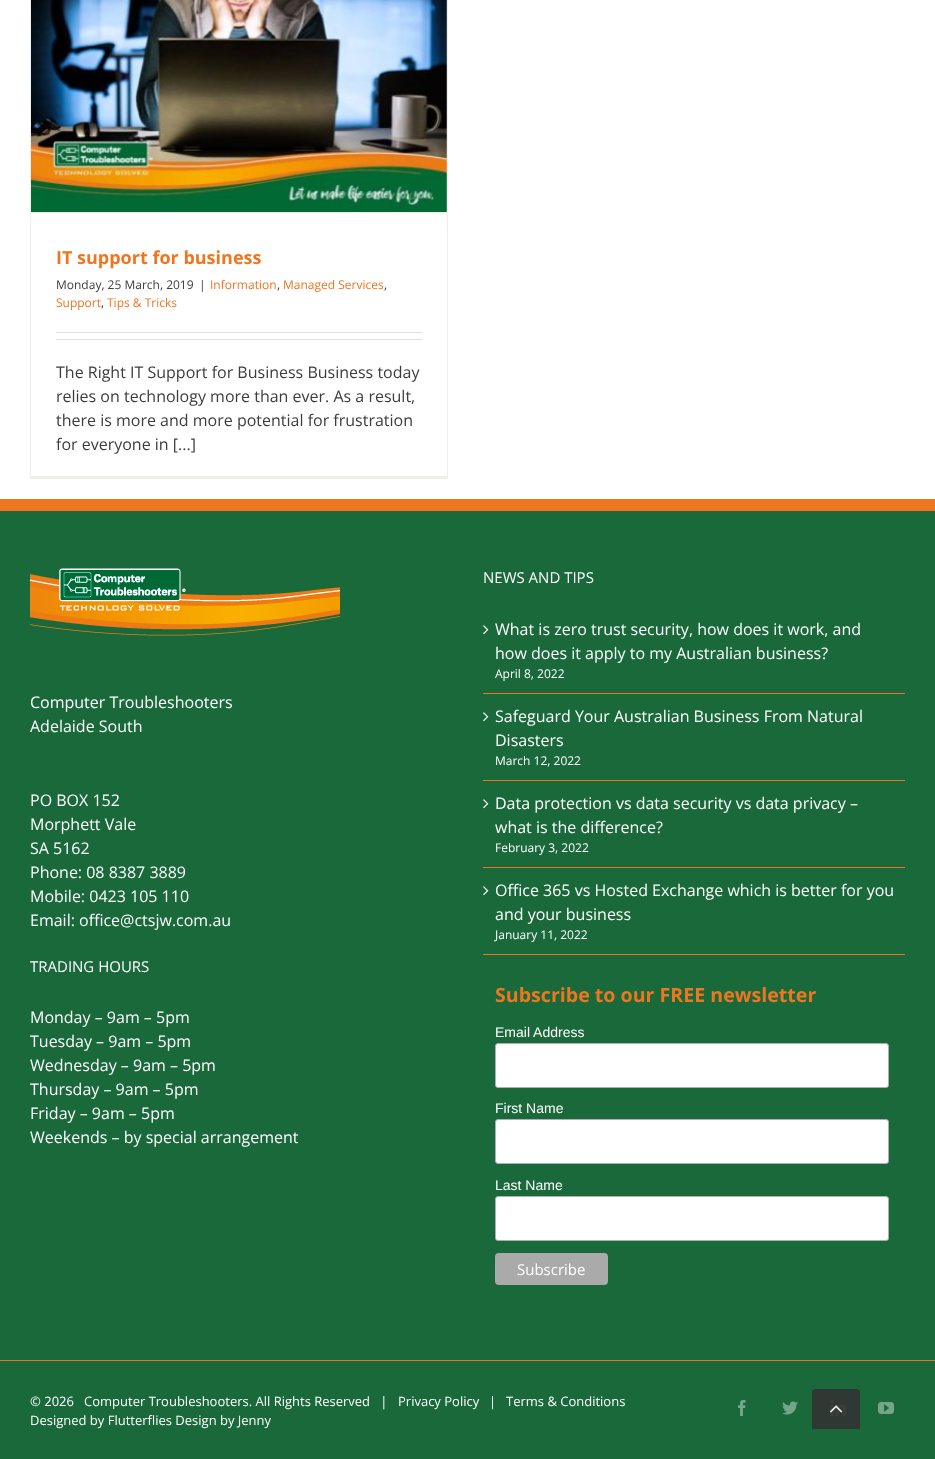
async function draw(canvas) {
	canvas.width = 935;
	canvas.height = 1459;
	const c = canvas.getContext('2d');
	c.miterLimit = 4;
	c.fontKerning = 'normal';
	async function loadImage(src) {
		const img = new Image();
		img.src = src;
		await img.decode();
		return img;
	}

	c.fillStyle = '#fff';
	c.fillRect(0, 0, 935, 1459);
	for (const [x, y, w, h, color] of [
		[447, 0, 1, 479, '#efeee8'],
		[30, 476, 418, 3, '#efeee8'],
		[30, 0, 1, 479, '#efeee8'],
		[31, 212, 416, 1, '#efeee8'],
	]) {
		c.fillStyle = color;
		c.fillRect(x, y, w, h);
	}
	c.drawImage(await loadImage('img1.png'), 31, 0, 416, 212);
	c.font = 'bold 18px Open Sans';
	c.fillStyle = '#ee7621';
	c.fillText('IT support for business', 56, 264);
	c.font = '12px Open Sans';
	c.fillStyle = '#3d3d3d';
	c.fillText('Monday, 25 March, 2019', 56, 289);
	c.fillText('|', 199, 289);
	c.fillStyle = '#ee7621';
	c.fillText('Information', 210, 289);
	c.fillStyle = '#3d3d3d';
	c.fillText(',', 277, 289);
	c.fillStyle = '#ee7621';
	c.fillText('Managed Services', 283, 289);
	c.fillStyle = '#3d3d3d';
	c.fillText(',', 384, 289);
	c.fillStyle = '#ee7621';
	c.fillText('Support', 56, 307);
	c.fillStyle = '#3d3d3d';
	c.fillText(',', 101, 307);
	c.fillStyle = '#ee7621';
	c.fillText('Tips & Tricks', 107, 307);
	c.fillStyle = '#e0dede';
	c.fillRect(56, 332, 366, 1);
	c.fillRect(56, 339, 366, 1);
	c.font = '16px Open Sans';
	c.fillStyle = '#3d3d3d';
	for (const [text, x, y] of [
		['The Right IT Support for Business Business today', 56, 378],
		['relies on technology more than ever. As a result,', 56, 402],
		['there is more and more potential for frustration', 56, 426],
		['for everyone in [...]', 56, 450],
	]) {
		c.fillText(text, x, y);
	}
	c.fillStyle = '#1a693b';
	c.fillRect(0, 511, 935, 849);
	c.fillStyle = '#ee7621';
	c.fillRect(0, 499, 935, 12);
	c.drawImage(await loadImage('img2.png'), 30, 568, 310, 68);
	c.fillStyle = '#fff';
	for (const [text, x, y] of [
		['Computer Troubleshooters', 30, 708],
		['Adelaide South', 30, 732],
		['PO BOX 152', 30, 806],
		['Morphett Vale', 30, 830],
		['SA 5162', 30, 854],
		['Phone: 08 8387 3889', 30, 878],
		['Mobile: 0423 105 110', 30, 902],
		['Email: office@ctsjw.com.au', 30, 926],
	]) {
		c.fillText(text, x, y);
	}
	c.font = '15px Open Sans';
	c.fillText('NEWS AND TIPS', 483, 583);
	c.fillStyle = '#ee7621';
	c.fillRect(483, 693, 422, 1);
	c.drawImage(await loadImage('img3.png'), 483, 625, 6, 10);
	c.font = '16px Open Sans';
	c.fillStyle = '#fff';
	c.fillText('What is zero trust security, how does it work, and', 495, 635);
	c.fillText('how does it apply to my Australian business?', 495, 659);
	c.font = '12px Open Sans';
	c.fillText('April 8, 2022', 495, 678);
	c.fillStyle = '#ee7621';
	c.fillRect(483, 780, 422, 1);
	c.drawImage(await loadImage('img3.png'), 483, 712, 6, 10);
	c.font = '16px Open Sans';
	c.fillStyle = '#fff';
	c.fillText('Safeguard Your Australian Business From Natural', 495, 722);
	c.fillText('Disasters', 495, 746);
	c.font = '12px Open Sans';
	c.fillText('March 12, 2022', 495, 765);
	c.fillStyle = '#ee7621';
	c.fillRect(483, 867, 422, 1);
	c.drawImage(await loadImage('img3.png'), 483, 799, 6, 10);
	c.font = '16px Open Sans';
	c.fillStyle = '#fff';
	c.fillText('Data protection vs data security vs data privacy –', 495, 809);
	c.fillText('what is the difference?', 495, 833);
	c.font = '12px Open Sans';
	c.fillText('February 3, 2022', 495, 852);
	c.fillStyle = '#ee7621';
	c.fillRect(483, 954, 422, 1);
	c.drawImage(await loadImage('img3.png'), 483, 886, 6, 10);
	c.font = '16px Open Sans';
	c.fillStyle = '#fff';
	c.fillText('Office 365 vs Hosted Exchange which is better for you', 495, 896);
	c.fillText('and your business', 495, 920);
	c.font = '12px Open Sans';
	c.fillText('January 11, 2022', 495, 939);
	c.font = '15px Open Sans';
	c.fillText('TRADING HOURS', 30, 972);
	c.font = '16px Open Sans';
	for (const [text, x, y] of [
		['Monday – 9am – 5pm', 30, 1023],
		['Tuesday – 9am – 5pm', 30, 1047],
		['Wednesday – 9am – 5pm', 30, 1071],
		['Thursday – 9am – 5pm', 30, 1095],
		['Friday – 9am – 5pm', 30, 1119],
		['Weekends – by special arrangement', 30, 1143],
	]) {
		c.fillText(text, x, y);
	}
	c.font = 'bold 19.6px Open Sans';
	c.fillStyle = '#ee7621';
	c.fillText('Subscribe to our FREE newsletter', 495, 1002);
	c.font = '14px Liberation Sans';
	c.fillStyle = '#fff';
	c.fillText('Email Address', 495, 1037);
	c.beginPath();
	c.roundRect(495.5, 1043.5, 393, 44, 2.5);
	c.fill();
	c.strokeStyle = '#abb0b2';
	c.stroke();
	c.fillText('First Name', 495, 1113);
	c.beginPath();
	c.roundRect(495.5, 1119.5, 393, 44, 2.5);
	c.fill();
	c.stroke();
	c.fillText('Last Name', 495, 1190);
	c.beginPath();
	c.roundRect(495.5, 1196.5, 393, 44, 2.5);
	c.fill();
	c.stroke();
	c.fillStyle = '#aaa';
	c.beginPath();
	c.roundRect(495, 1253, 113, 32, 4);
	c.fill();
	c.font = '15px Open Sans';
	c.fillStyle = '#fff';
	c.fillText('Subscribe', 517, 1275);
	c.fillStyle = '#1a693b';
	c.fillRect(0, 1361, 935, 98);
	c.fillStyle = '#ee7621';
	c.fillRect(0, 1360, 935, 1);
	c.font = '13px Open Sans';
	c.fillStyle = '#fff';
	for (const [text, x, y] of [
		['© 2026   Computer Troubleshooters. All Rights Reserved   |', 30, 1406],
		['Privacy Policy', 398, 1406],
		['|', 489, 1406],
		['Terms & Conditions', 506, 1406],
		['Designed by Flutterflies Design by Jenny', 30, 1425],
	]) {
		c.fillText(text, x, y);
	}
	c.drawImage(await loadImage('img4.png'), 738, 1400, 8, 16);
	c.drawImage(await loadImage('img5.png'), 782, 1401, 16, 14);
	c.drawImage(await loadImage('img6.png'), 830, 1400, 16, 16);
	c.drawImage(await loadImage('img7.png'), 878, 1402, 16, 12);
	c.fillStyle = '#333333e6';
	c.beginPath();
	c.roundRect(812, 1389, 48, 40, [4, 4, 0, 0]);
	c.fill();
	c.drawImage(await loadImage('img8.png'), 830, 1405, 13, 8);
}

draw(document.querySelector('canvas'));
